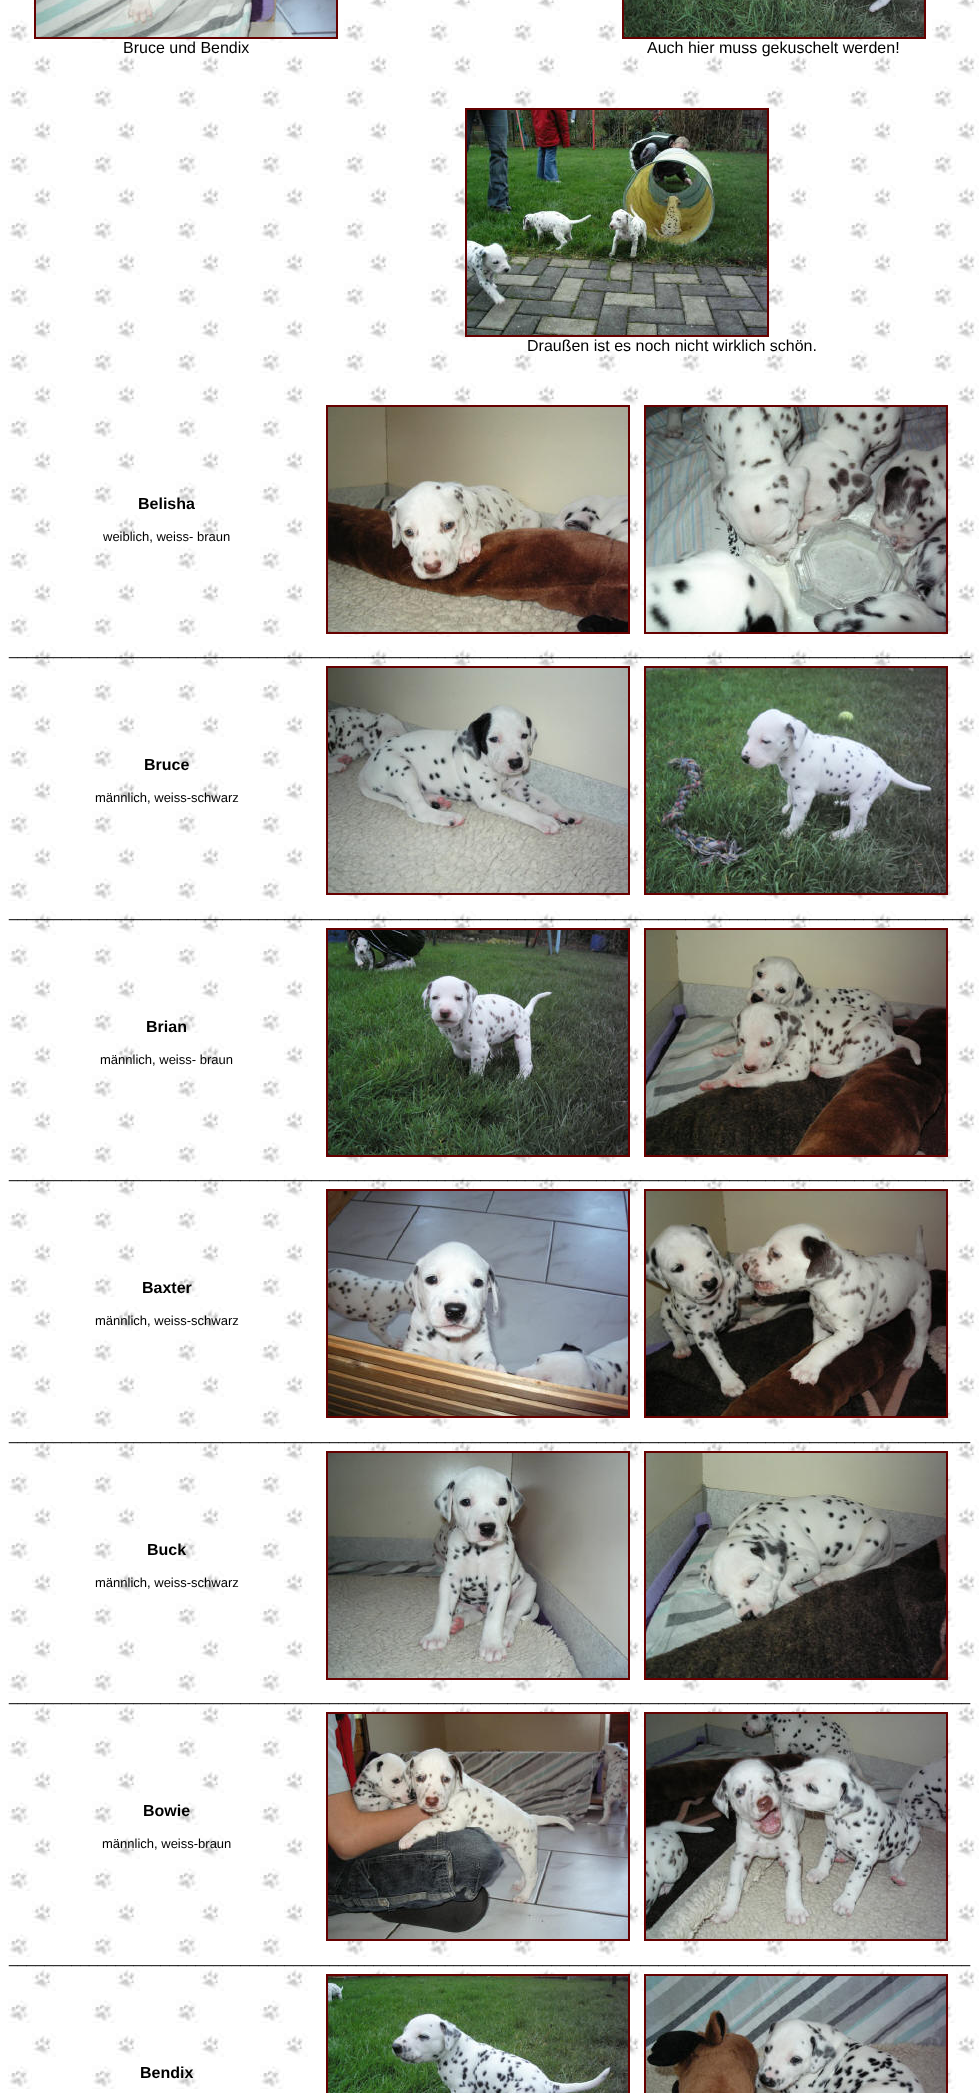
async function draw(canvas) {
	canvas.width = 979;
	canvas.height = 2093;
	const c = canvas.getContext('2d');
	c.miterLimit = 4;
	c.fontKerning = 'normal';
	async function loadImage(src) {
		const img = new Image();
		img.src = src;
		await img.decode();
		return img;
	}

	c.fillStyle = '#fff';
	c.fillRect(0, 0, 979, 2093);
	c.drawImage(await loadImage('img1.png'), 8, 0, 971, 2089);
	c.strokeStyle = '#600';
	c.lineWidth = 2;
	c.strokeRect(35, -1, 302, 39);
	c.drawImage(await loadImage('img2.png'), 36, 0, 300, 37);
	c.strokeRect(623, -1, 302, 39);
	c.drawImage(await loadImage('img3.png'), 624, 0, 300, 37);
	c.font = '16px Liberation Sans';
	c.fillStyle = '#000';
	c.fillText('Bruce und Bendix', 123, 53);
	c.fillText('Auch hier muss gekuschelt werden!', 647, 53);
	c.strokeRect(466, 109, 302, 227);
	c.drawImage(await loadImage('img4.png'), 467, 110, 300, 225);
	c.fillText('Draußen ist es noch nicht wirklich schön.', 527, 351);
	c.font = 'bold 16px Liberation Sans';
	c.fillText('Belisha', 138, 509);
	c.font = '13px Liberation Sans';
	c.fillText('weiblich, weiss- braun', 103, 541);
	c.strokeRect(327, 406, 302, 227);
	c.drawImage(await loadImage('img5.png'), 328, 407, 300, 225);
	c.strokeRect(645, 406, 302, 227);
	c.drawImage(await loadImage('img6.png'), 646, 407, 300, 225);
	c.font = '16px Liberation Sans';
	c.fillText('____________________________________________________________________________________________________________', 9, 655);
	c.font = 'bold 16px Liberation Sans';
	c.fillText('Bruce', 144, 770);
	c.font = '13px Liberation Sans';
	c.fillText('männlich, weiss-schwarz', 95, 802);
	c.strokeRect(327, 667, 302, 227);
	c.drawImage(await loadImage('img7.png'), 328, 668, 300, 225);
	c.strokeRect(645, 667, 302, 227);
	c.drawImage(await loadImage('img8.png'), 646, 668, 300, 225);
	c.font = '16px Liberation Sans';
	c.fillText('____________________________________________________________________________________________________________', 9, 917);
	c.font = 'bold 16px Liberation Sans';
	c.fillText('Brian', 146, 1032);
	c.font = '13px Liberation Sans';
	c.fillText('männlich, weiss- braun', 100, 1064);
	c.strokeRect(327, 929, 302, 227);
	c.drawImage(await loadImage('img9.png'), 328, 930, 300, 225);
	c.strokeRect(645, 929, 302, 227);
	c.drawImage(await loadImage('img10.png'), 646, 930, 300, 225);
	c.font = '16px Liberation Sans';
	c.fillText('____________________________________________________________________________________________________________', 9, 1178);
	c.font = 'bold 16px Liberation Sans';
	c.fillText('Baxter', 142, 1293);
	c.font = '13px Liberation Sans';
	c.fillText('männlich, weiss-schwarz', 95, 1325);
	c.strokeRect(327, 1190, 302, 227);
	c.drawImage(await loadImage('img11.png'), 328, 1191, 300, 225);
	c.strokeRect(645, 1190, 302, 227);
	c.drawImage(await loadImage('img12.png'), 646, 1191, 300, 225);
	c.font = '16px Liberation Sans';
	c.fillText('____________________________________________________________________________________________________________', 9, 1440);
	c.font = 'bold 16px Liberation Sans';
	c.fillText('Buck', 147, 1555);
	c.font = '13px Liberation Sans';
	c.fillText('männlich, weiss-schwarz', 95, 1587);
	c.strokeRect(327, 1452, 302, 227);
	c.drawImage(await loadImage('img13.png'), 328, 1453, 300, 225);
	c.strokeRect(645, 1452, 302, 227);
	c.drawImage(await loadImage('img14.png'), 646, 1453, 300, 225);
	c.font = '16px Liberation Sans';
	c.fillText('____________________________________________________________________________________________________________', 9, 1701);
	c.font = 'bold 16px Liberation Sans';
	c.fillText('Bowie', 143, 1816);
	c.font = '13px Liberation Sans';
	c.fillText('männlich, weiss-braun', 102, 1848);
	c.strokeRect(327, 1713, 302, 227);
	c.drawImage(await loadImage('img15.png'), 328, 1714, 300, 225);
	c.strokeRect(645, 1713, 302, 227);
	c.drawImage(await loadImage('img16.png'), 646, 1714, 300, 225);
	c.font = '16px Liberation Sans';
	c.fillText('____________________________________________________________________________________________________________', 9, 1963);
	c.font = 'bold 16px Liberation Sans';
	c.fillText('Bendix', 140, 2078);
	c.strokeRect(327, 1975, 302, 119);
	c.drawImage(await loadImage('img17.png'), 328, 1976, 300, 117);
	c.strokeRect(645, 1975, 302, 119);
	c.drawImage(await loadImage('img18.png'), 646, 1976, 300, 117);
}

draw(document.querySelector('canvas'));
